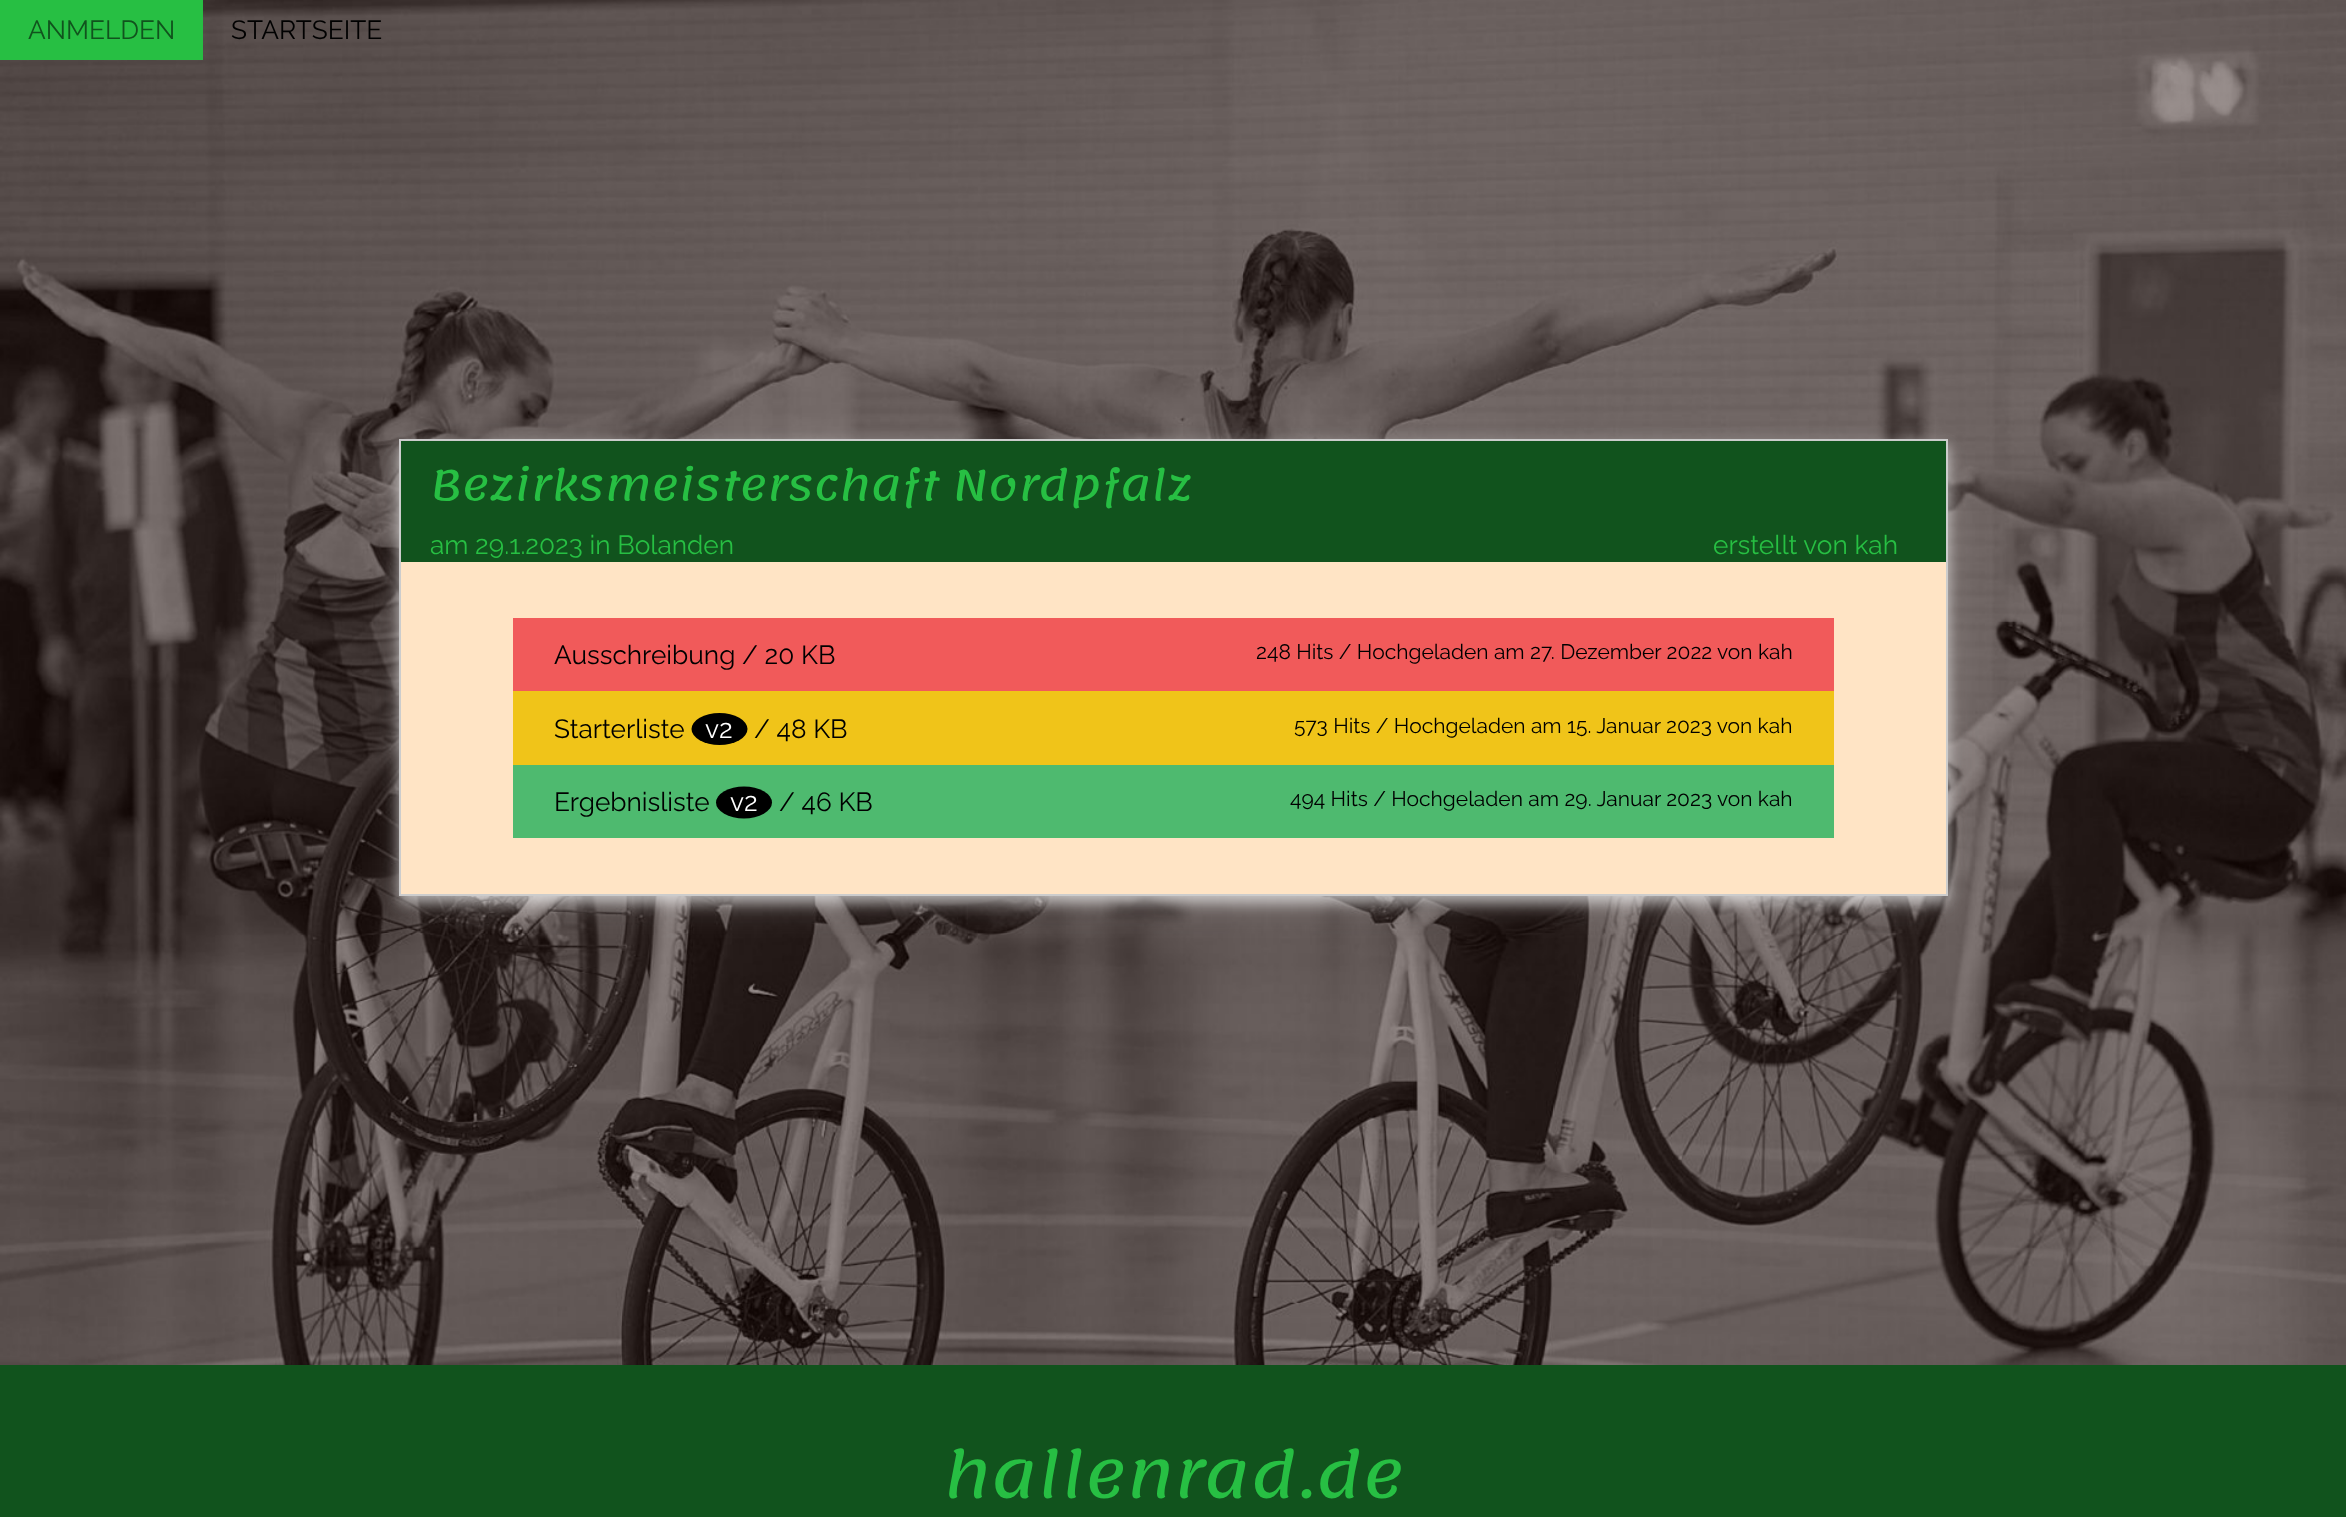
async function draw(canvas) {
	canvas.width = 2346;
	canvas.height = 1517;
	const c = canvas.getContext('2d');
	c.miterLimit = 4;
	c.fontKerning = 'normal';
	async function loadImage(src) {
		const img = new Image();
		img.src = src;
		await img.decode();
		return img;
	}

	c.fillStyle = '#11531d';
	c.fillRect(0, 0, 2346, 1517);
	c.drawImage(await loadImage('img1.png'), 0, 0, 2346, 1365);
	c.fillStyle = '#27bf43';
	c.fillRect(0, 0, 203, 60);
	c.font = '100 26.25px Raleway';
	c.fillStyle = '#11531d';
	c.fillText('ANMELDEN', 28, 39);
	c.fillStyle = '#000';
	c.fillText('STARTSEITE', 231, 39);
	c.fillStyle = '#ffffff30';
	c.filter = 'blur(17.5px)';
	c.beginPath();
	c.rect(399, 450, 1549, 457);
	c.fill();
	c.filter = 'none';
	c.fillStyle = '#ffffff99';
	c.filter = 'blur(7px)';
	c.beginPath();
	c.rect(399, 446, 1549, 457);
	c.fill();
	c.filter = 'none';
	c.fillStyle = '#ffe4c5';
	c.fillRect(401, 562, 1545, 332);
	c.strokeStyle = '#ccc';
	c.lineWidth = 2;
	c.strokeRect(400, 440, 1547, 455);
	c.fillStyle = '#11531d';
	c.fillRect(401, 441, 1545, 121);
	c.font = '42px Lemonada';
	c.fillStyle = '#27bf43';
	c.fillText('Bezirksmeisterschaft Nordpfalz', 430, 500);
	c.font = '100 26.25px Raleway';
	c.fillText('am 29.1.2023 in Bolanden', 430, 554);
	c.fillText('erstellt von kah', 1713, 554);
	c.fillStyle = '#f15a5a';
	c.fillRect(513, 618, 1321, 73);
	c.fillStyle = '#000';
	c.fillText('Ausschreibung / 20 KB', 554, 664);
	c.font = '100 21px Raleway';
	c.fillText('248 Hits / Hochgeladen am 27. Dezember 2022 von kah', 1256, 659);
	c.fillStyle = '#f0c419';
	c.fillRect(513, 691, 1321, 74);
	c.font = '100 26.25px Raleway';
	c.fillStyle = '#000';
	c.fillText('Starterliste', 554, 738);
	c.beginPath();
	c.ellipse(719.5, 729, 28, 16, 0, 0, 2 * Math.PI);
	c.fill();
	c.fillStyle = '#fff';
	c.fillText('v2', 705, 738);
	c.fillStyle = '#000';
	c.fillText('/ 48 KB', 754, 738);
	c.font = '100 21px Raleway';
	c.fillText('573 Hits / Hochgeladen am 15. Januar 2023 von kah', 1294, 733);
	c.fillStyle = '#4eba6f';
	c.fillRect(513, 765, 1321, 73);
	c.font = '100 26.25px Raleway';
	c.fillStyle = '#000';
	c.fillText('Ergebnisliste', 554, 811);
	c.beginPath();
	c.ellipse(744, 802.5, 28, 16, 0, 0, 2 * Math.PI);
	c.fill();
	c.fillStyle = '#fff';
	c.fillText('v2', 730, 811);
	c.fillStyle = '#000';
	c.fillText('/ 46 KB', 779, 811);
	c.font = '100 21px Raleway';
	c.fillText('494 Hits / Hochgeladen am 29. Januar 2023 von kah', 1290, 806);
	c.font = '63px Lemonada';
	c.fillStyle = '#27bf43';
	c.fillText('hallenrad.de', 944, 1497);
}

draw(document.querySelector('canvas'));
